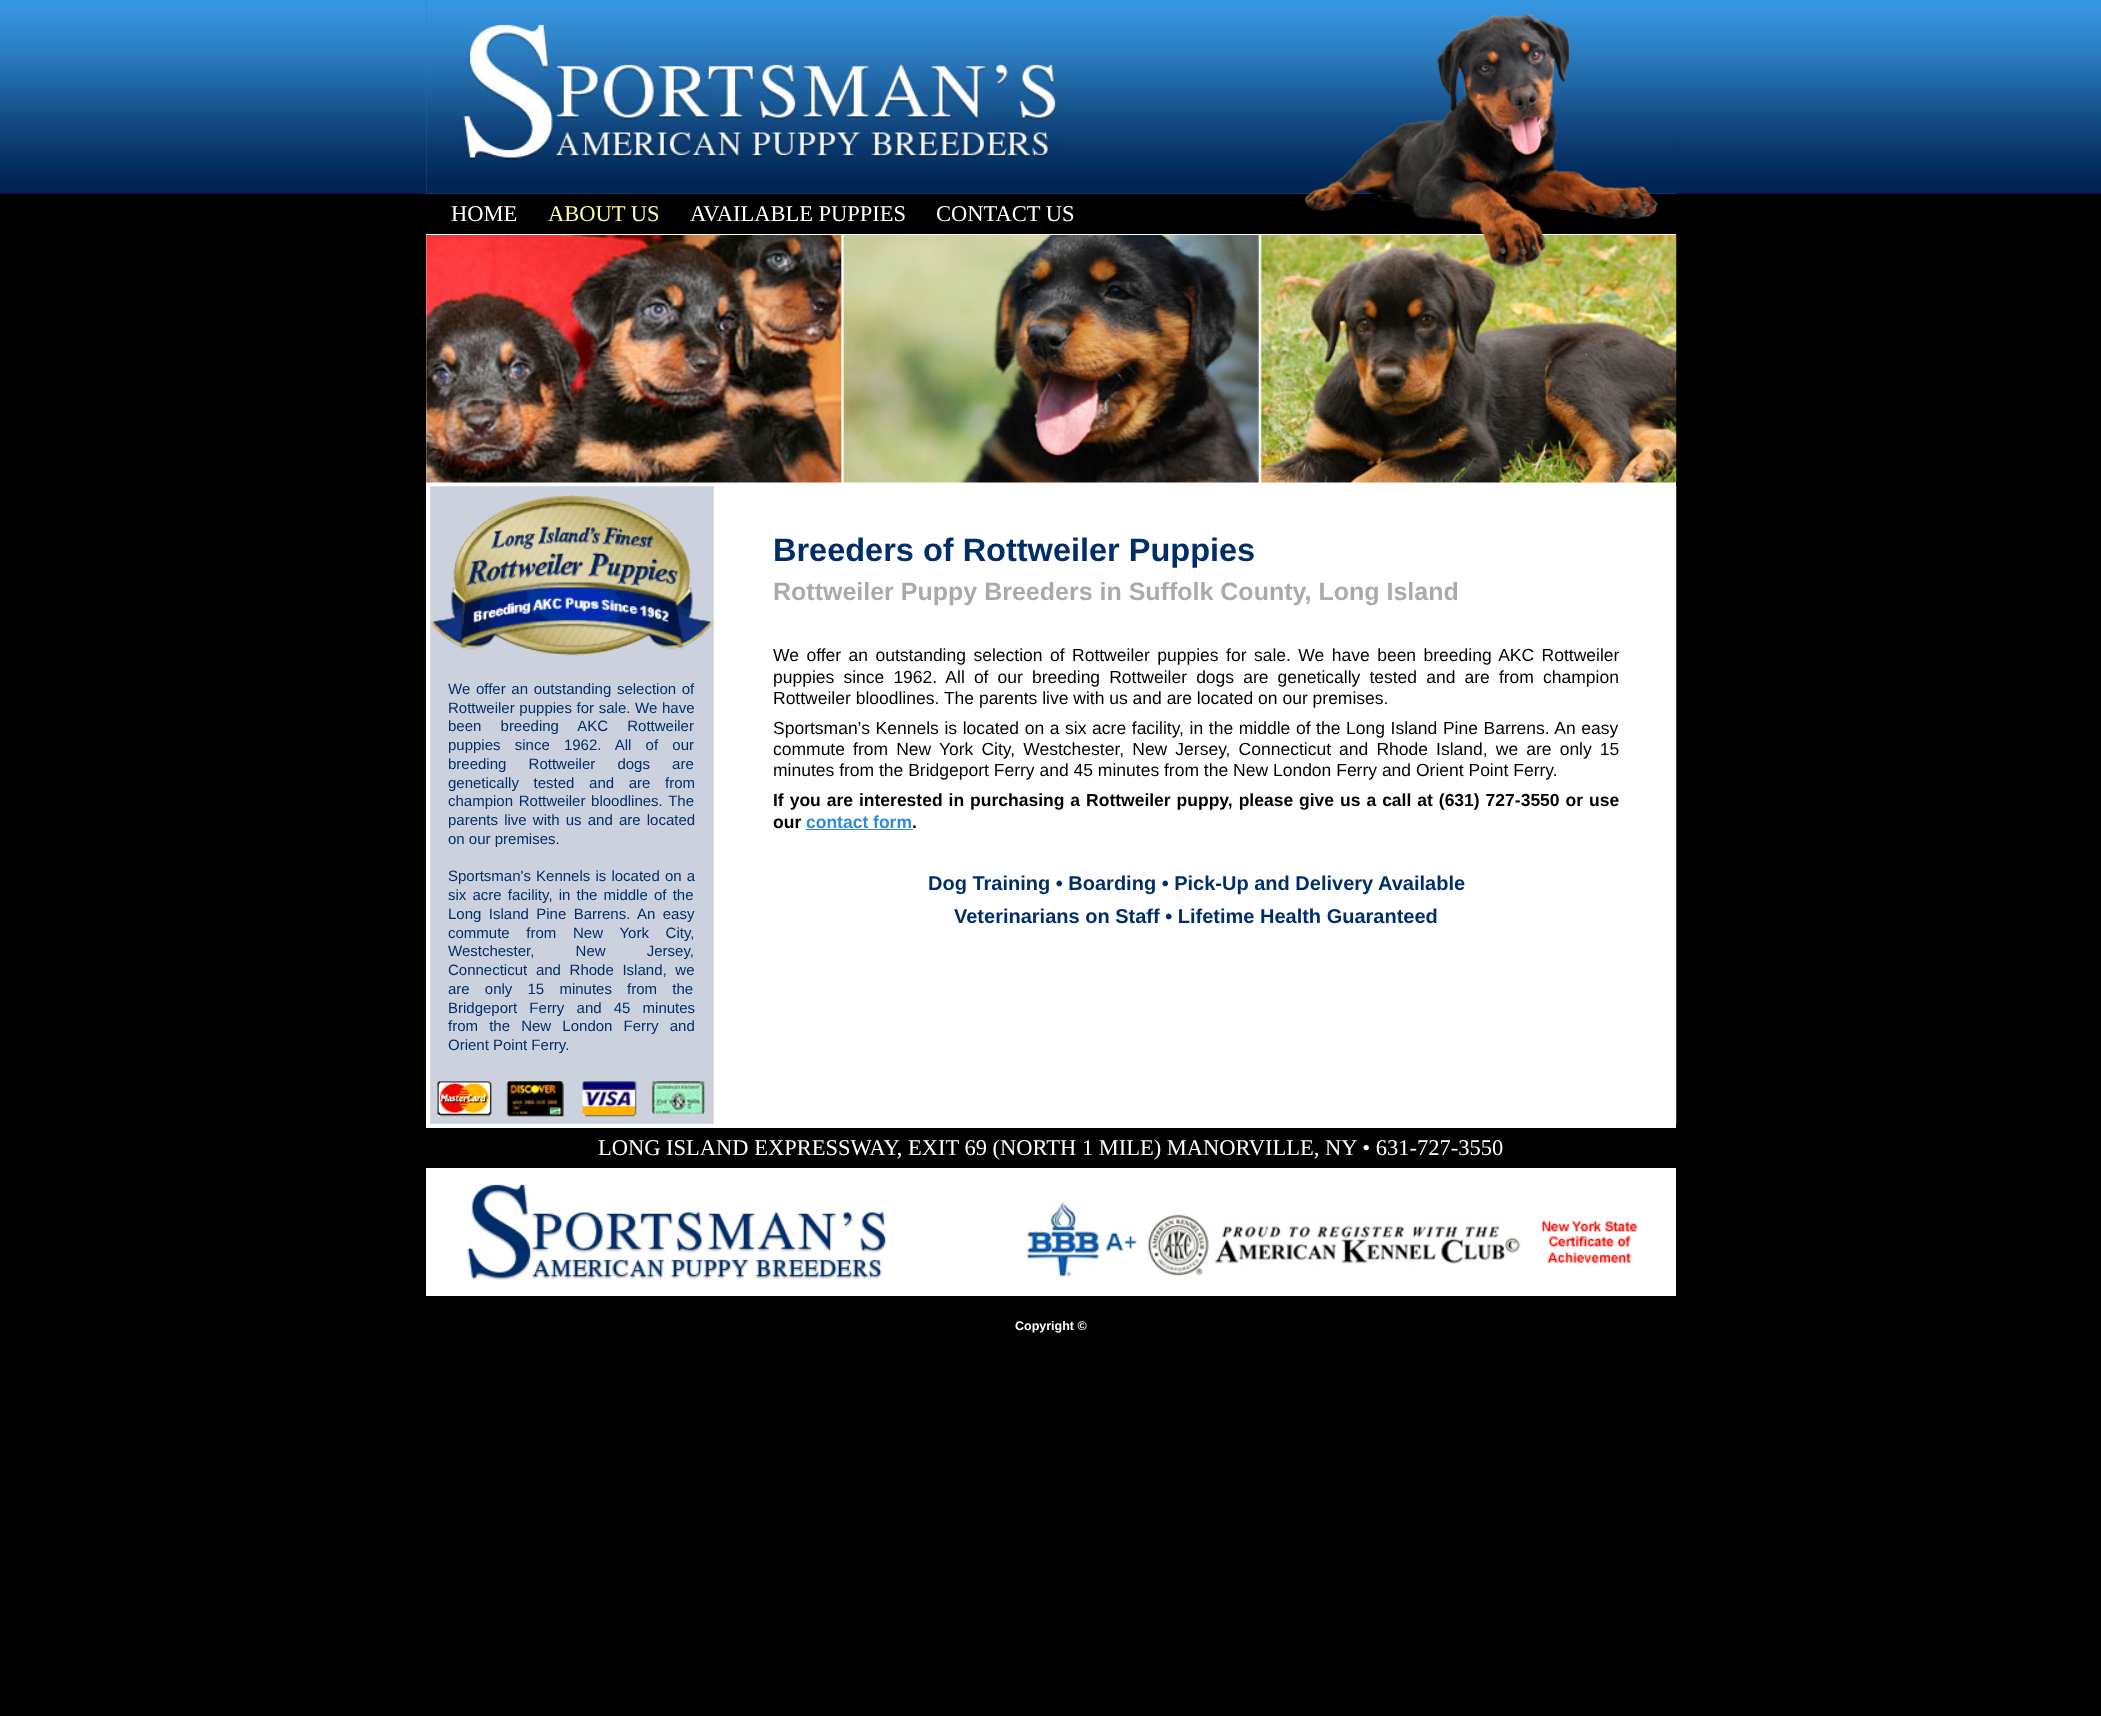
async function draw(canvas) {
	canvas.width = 2101;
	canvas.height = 1716;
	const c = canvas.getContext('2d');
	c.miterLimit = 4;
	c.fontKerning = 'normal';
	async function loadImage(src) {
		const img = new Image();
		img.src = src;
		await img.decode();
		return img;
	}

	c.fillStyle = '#000';
	c.fillRect(0, 0, 2101, 1716);
	c.drawImage(await loadImage('img1.png'), 0, 0, 2101, 195);
	c.fillStyle = '#fff';
	c.fillRect(426, 234, 1250, 1062);
	c.fillStyle = '#2978ba';
	c.fillRect(426, 0, 1250, 194);
	c.drawImage(await loadImage('img2.png'), 426, 0, 1251, 194);
	c.fillStyle = '#000';
	c.fillRect(426, 194, 1250, 1);
	c.font = '22.5px Liberation Serif';
	c.fillStyle = '#fff';
	c.fillText('HOME', 451, 221);
	c.fillStyle = '#fffea2';
	c.fillText('ABOUT US', 548, 221);
	c.fillStyle = '#fff';
	c.fillText('AVAILABLE PUPPIES', 690, 221);
	c.fillText('CONTACT US', 936, 221);
	c.drawImage(await loadImage('img4.png'), 426, 235, 1251, 248);
	c.drawImage(await loadImage('img3.png'), 1305, 13, 353, 255);
	c.drawImage(await loadImage('img5.png'), 430, 486, 1247, 638);
	c.drawImage(await loadImage('img6.png'), 430, 495, 284, 161);
	c.wordSpacing = '1.5px';
	c.font = '15px Liberation Sans';
	c.fillStyle = '#002e69';
	c.fillText('We offer an outstanding selection of', 448, 694);
	c.wordSpacing = '0.5px';
	c.fillText('Rottweiler puppies for sale. We have', 448, 713);
	c.wordSpacing = '15px';
	c.fillText('been breeding AKC Rottweiler', 448, 731);
	c.wordSpacing = '10px';
	c.fillText('puppies since 1962. All of our', 448, 750);
	c.wordSpacing = '18px';
	c.fillText('breeding Rottweiler dogs are', 448, 769);
	c.wordSpacing = '10.5px';
	c.fillText('genetically tested and are from', 448, 788);
	c.wordSpacing = '1.5px';
	c.fillText('champion Rottweiler bloodlines. The', 448, 806);
	c.wordSpacing = '2px';
	c.fillText('parents live with us and are located', 448, 825);
	c.wordSpacing = '0px';
	c.fillText('on our premises.', 448, 844);
	c.wordSpacing = '1px';
	c.fillText('Sportsman\'s Kennels is located on a', 448, 881);
	c.wordSpacing = '2px';
	c.fillText('six acre facility, in the middle of the', 448, 900);
	c.wordSpacing = '3.25px';
	c.fillText('Long Island Pine Barrens. An easy', 448, 919);
	c.wordSpacing = '12.5px';
	c.fillText('commute from New York City,', 448, 938);
	c.wordSpacing = '37px';
	c.fillText('Westchester, New Jersey,', 448, 956);
	c.wordSpacing = '4.5px';
	c.fillText('Connecticut and Rhode Island, we', 448, 975);
	c.wordSpacing = '11px';
	c.fillText('are only 15 minutes from the', 448, 994);
	c.wordSpacing = '8px';
	c.fillText('Bridgeport Ferry and 45 minutes', 448, 1013);
	c.wordSpacing = '7px';
	c.fillText('from the New London Ferry and', 448, 1031);
	c.wordSpacing = '0px';
	c.fillText('Orient Point Ferry.', 448, 1050);
	c.drawImage(await loadImage('img7.png'), 437, 1081, 55, 36);
	c.drawImage(await loadImage('img8.png'), 506, 1081, 59, 36);
	c.drawImage(await loadImage('img9.png'), 582, 1080, 55, 37);
	c.drawImage(await loadImage('img10.png'), 650, 1081, 56, 33);
	c.font = 'bold 32.5px Liberation Sans';
	c.fillText('Breeders of Rottweiler Puppies', 773, 561);
	c.font = 'bold 25px Liberation Sans';
	c.fillStyle = '#aaa';
	c.fillText('Rottweiler Puppy Breeders in Suffolk County, Long Island', 773, 600);
	c.wordSpacing = '2.6px';
	c.font = '17.5px Liberation Sans';
	c.fillStyle = '#000';
	c.fillText('We offer an outstanding selection of Rottweiler puppies for sale. We have been breeding AKC Rottweiler', 773, 661);
	c.wordSpacing = '4.25px';
	c.fillText('puppies since 1962. All of our breeding Rottweiler dogs are genetically tested and are from champion', 773, 683);
	c.wordSpacing = '0px';
	c.fillText('Rottweiler bloodlines. The parents live with us and are located on our premises.', 773, 704);
	c.wordSpacing = '0.75px';
	c.fillText('Sportsman’s Kennels is located on a six acre facility, in the middle of the Long Island Pine Barrens. An easy', 773, 734);
	c.wordSpacing = '3.25px';
	c.fillText('commute from New York City, Westchester, New Jersey, Connecticut and Rhode Island, we are only 15', 773, 755);
	c.wordSpacing = '0px';
	c.fillText('minutes from the Bridgeport Ferry and 45 minutes from the New London Ferry and Orient Point Ferry.', 773, 776);
	c.wordSpacing = '1.1px';
	c.font = 'bold 17.5px Liberation Sans';
	c.fillText('If you are interested in purchasing a Rottweiler puppy, please give us a call at (631) 727-3550 or use', 773, 806);
	c.wordSpacing = '0px';
	c.fillText('our', 773, 828);
	c.fillStyle = '#328cd3';
	c.fillText('contact form', 806, 828);
	c.fillStyle = '#000';
	c.fillText('.', 912, 828);
	c.fillStyle = '#328cd3';
	c.fillRect(806, 829, 107, 1);
	c.font = 'bold 20px Liberation Sans';
	c.fillStyle = '#002e69';
	c.fillText('Dog Training • Boarding • Pick-Up and Delivery Available', 928, 890);
	c.fillText('Veterinarians on Staff • Lifetime Health Guaranteed', 954, 923);
	c.fillStyle = '#000';
	c.fillRect(426, 1128, 1250, 40);
	c.font = '22.5px Liberation Serif';
	c.fillStyle = '#fff';
	c.fillText('LONG ISLAND EXPRESSWAY, EXIT 69 (NORTH 1 MILE) MANORVILLE, NY • 631-727-3550', 598, 1155);
	c.drawImage(await loadImage('img11.png'), 467, 1183, 420, 97);
	c.drawImage(await loadImage('img12.png'), 1026, 1201, 112, 76);
	c.drawImage(await loadImage('img13.png'), 1147, 1214, 374, 62);
	c.drawImage(await loadImage('img14.png'), 1542, 1220, 96, 45);
	c.font = 'bold 12.5px Liberation Sans';
	c.fillText('Copyright ©', 1015, 1330);
}

draw(document.querySelector('canvas'));
